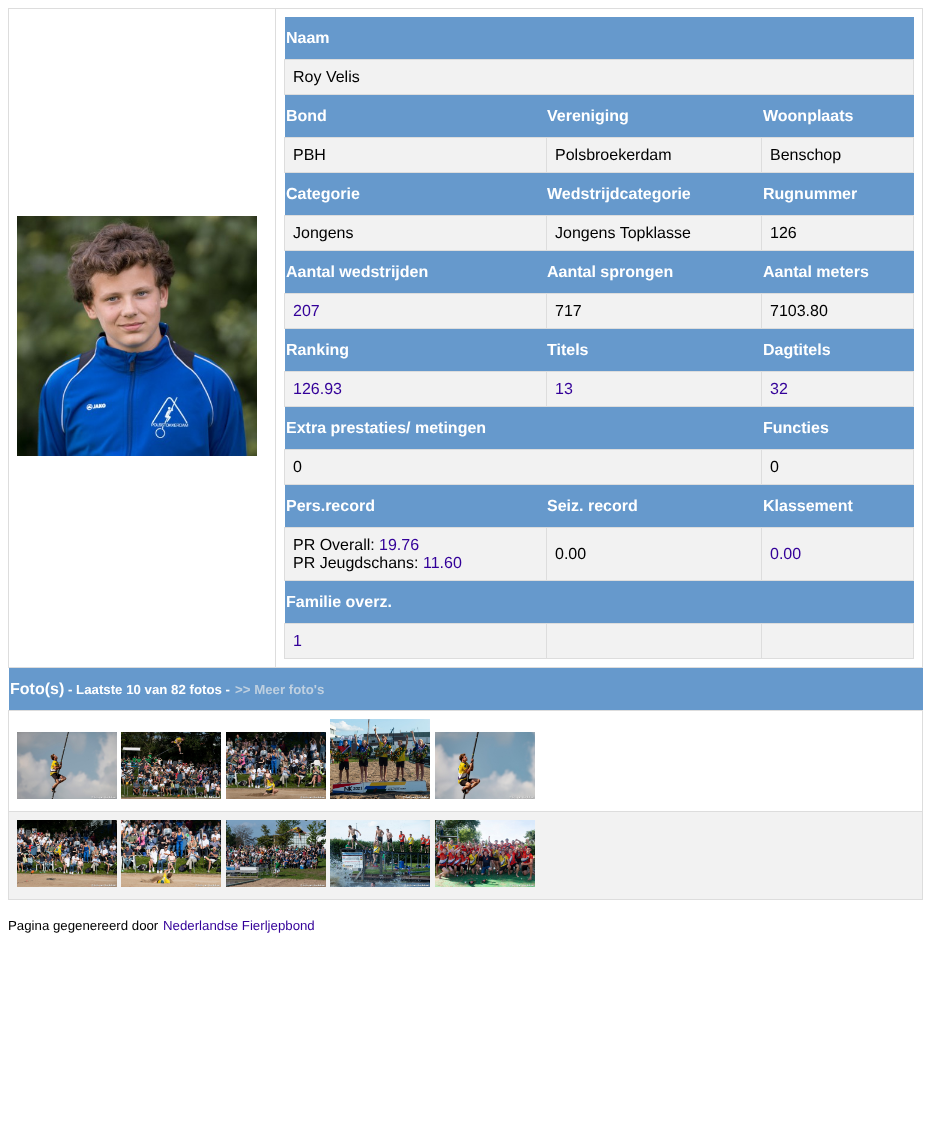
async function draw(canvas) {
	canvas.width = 931;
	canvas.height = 1130;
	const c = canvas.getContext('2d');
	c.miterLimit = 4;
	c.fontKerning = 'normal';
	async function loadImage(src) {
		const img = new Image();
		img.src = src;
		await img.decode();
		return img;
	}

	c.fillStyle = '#fff';
	c.fillRect(0, 0, 931, 1130);
	for (const [x, y, w, h, color] of [
		[275, 8, 648, 1, '#ddd'],
		[922, 8, 1, 660, '#ddd'],
		[275, 667, 648, 1, '#ddd'],
		[275, 8, 1, 660, '#ddd'],
		[8, 8, 268, 1, '#ddd'],
		[8, 667, 268, 1, '#ddd'],
		[8, 8, 1, 660, '#ddd'],
	]) {
		c.fillStyle = color;
		c.fillRect(x, y, w, h);
	}
	c.drawImage(await loadImage('img1.png'), 17, 216, 240, 240);
	c.fillStyle = '#69c';
	c.fillRect(285, 17, 629, 42);
	c.font = 'bold 16px Liberation Sans';
	c.fillStyle = '#fff';
	c.fillText('Naam', 286, 43);
	for (const [x, y, w, h, color] of [
		[285, 60, 628, 34, '#f2f2f2'],
		[284, 59, 630, 1, '#ddd'],
		[913, 59, 1, 36, '#ddd'],
		[284, 94, 630, 1, '#ddd'],
		[284, 59, 1, 36, '#ddd'],
	]) {
		c.fillStyle = color;
		c.fillRect(x, y, w, h);
	}
	c.font = '16px Liberation Sans';
	c.fillStyle = '#000';
	c.fillText('Roy Velis', 293, 82);
	c.fillStyle = '#69c';
	c.fillRect(285, 95, 629, 42);
	c.font = 'bold 16px Liberation Sans';
	c.fillStyle = '#fff';
	for (const [text, x, y] of [
		['Bond', 286, 121],
		['Vereniging', 547, 121],
		['Woonplaats', 763, 121],
	]) {
		c.fillText(text, x, y);
	}
	for (const [x, y, w, h, color] of [
		[285, 138, 628, 34, '#f2f2f2'],
		[761, 137, 153, 1, '#ddd'],
		[913, 137, 1, 36, '#ddd'],
		[761, 172, 153, 1, '#ddd'],
		[761, 137, 1, 36, '#ddd'],
		[546, 137, 216, 1, '#ddd'],
		[546, 172, 216, 1, '#ddd'],
		[546, 137, 1, 36, '#ddd'],
		[284, 137, 263, 1, '#ddd'],
		[284, 172, 263, 1, '#ddd'],
		[284, 137, 1, 36, '#ddd'],
	]) {
		c.fillStyle = color;
		c.fillRect(x, y, w, h);
	}
	c.font = '16px Liberation Sans';
	c.fillStyle = '#000';
	for (const [text, x, y] of [
		['PBH', 293, 160],
		['Polsbroekerdam', 555, 160],
		['Benschop', 770, 160],
	]) {
		c.fillText(text, x, y);
	}
	c.fillStyle = '#69c';
	c.fillRect(285, 173, 629, 42);
	c.font = 'bold 16px Liberation Sans';
	c.fillStyle = '#fff';
	for (const [text, x, y] of [
		['Categorie', 286, 199],
		['Wedstrijdcategorie', 547, 199],
		['Rugnummer', 763, 199],
	]) {
		c.fillText(text, x, y);
	}
	for (const [x, y, w, h, color] of [
		[285, 216, 628, 34, '#f2f2f2'],
		[761, 215, 153, 1, '#ddd'],
		[913, 215, 1, 36, '#ddd'],
		[761, 250, 153, 1, '#ddd'],
		[761, 215, 1, 36, '#ddd'],
		[546, 215, 216, 1, '#ddd'],
		[546, 250, 216, 1, '#ddd'],
		[546, 215, 1, 36, '#ddd'],
		[284, 215, 263, 1, '#ddd'],
		[284, 250, 263, 1, '#ddd'],
		[284, 215, 1, 36, '#ddd'],
	]) {
		c.fillStyle = color;
		c.fillRect(x, y, w, h);
	}
	c.font = '16px Liberation Sans';
	c.fillStyle = '#000';
	for (const [text, x, y] of [
		['Jongens', 293, 238],
		['Jongens Topklasse', 555, 238],
		['126', 770, 238],
	]) {
		c.fillText(text, x, y);
	}
	c.fillStyle = '#69c';
	c.fillRect(285, 251, 629, 42);
	c.font = 'bold 16px Liberation Sans';
	c.fillStyle = '#fff';
	for (const [text, x, y] of [
		['Aantal wedstrijden', 286, 277],
		['Aantal sprongen', 547, 277],
		['Aantal meters', 763, 277],
	]) {
		c.fillText(text, x, y);
	}
	for (const [x, y, w, h, color] of [
		[285, 294, 628, 34, '#f2f2f2'],
		[761, 293, 153, 1, '#ddd'],
		[913, 293, 1, 36, '#ddd'],
		[761, 328, 153, 1, '#ddd'],
		[761, 293, 1, 36, '#ddd'],
		[546, 293, 216, 1, '#ddd'],
		[546, 328, 216, 1, '#ddd'],
		[546, 293, 1, 36, '#ddd'],
		[284, 293, 263, 1, '#ddd'],
		[284, 328, 263, 1, '#ddd'],
		[284, 293, 1, 36, '#ddd'],
	]) {
		c.fillStyle = color;
		c.fillRect(x, y, w, h);
	}
	c.font = '16px Liberation Sans';
	c.fillStyle = '#309';
	c.fillText('207', 293, 316);
	c.fillStyle = '#000';
	c.fillText('717', 555, 316);
	c.fillText('7103.80', 770, 316);
	c.fillStyle = '#69c';
	c.fillRect(285, 329, 629, 42);
	c.font = 'bold 16px Liberation Sans';
	c.fillStyle = '#fff';
	for (const [text, x, y] of [
		['Ranking', 286, 355],
		['Titels', 547, 355],
		['Dagtitels', 763, 355],
	]) {
		c.fillText(text, x, y);
	}
	for (const [x, y, w, h, color] of [
		[285, 372, 628, 34, '#f2f2f2'],
		[761, 371, 153, 1, '#ddd'],
		[913, 371, 1, 36, '#ddd'],
		[761, 406, 153, 1, '#ddd'],
		[761, 371, 1, 36, '#ddd'],
		[546, 371, 216, 1, '#ddd'],
		[546, 406, 216, 1, '#ddd'],
		[546, 371, 1, 36, '#ddd'],
		[284, 371, 263, 1, '#ddd'],
		[284, 406, 263, 1, '#ddd'],
		[284, 371, 1, 36, '#ddd'],
	]) {
		c.fillStyle = color;
		c.fillRect(x, y, w, h);
	}
	c.font = '16px Liberation Sans';
	c.fillStyle = '#309';
	for (const [text, x, y] of [
		['126.93', 293, 394],
		['13', 555, 394],
		['32', 770, 394],
	]) {
		c.fillText(text, x, y);
	}
	c.fillStyle = '#69c';
	c.fillRect(285, 407, 629, 42);
	c.font = 'bold 16px Liberation Sans';
	c.fillStyle = '#fff';
	c.fillText('Extra prestaties/ metingen', 286, 433);
	c.fillText('Functies', 763, 433);
	for (const [x, y, w, h, color] of [
		[285, 450, 628, 34, '#f2f2f2'],
		[761, 449, 153, 1, '#ddd'],
		[913, 449, 1, 36, '#ddd'],
		[761, 484, 153, 1, '#ddd'],
		[761, 449, 1, 36, '#ddd'],
		[284, 449, 478, 1, '#ddd'],
		[284, 484, 478, 1, '#ddd'],
		[284, 449, 1, 36, '#ddd'],
	]) {
		c.fillStyle = color;
		c.fillRect(x, y, w, h);
	}
	c.font = '16px Liberation Sans';
	c.fillStyle = '#000';
	c.fillText('0', 293, 472);
	c.fillText('0', 770, 472);
	c.fillStyle = '#69c';
	c.fillRect(285, 485, 629, 42);
	c.font = 'bold 16px Liberation Sans';
	c.fillStyle = '#fff';
	for (const [text, x, y] of [
		['Pers.record', 286, 511],
		['Seiz. record', 547, 511],
		['Klassement', 763, 511],
	]) {
		c.fillText(text, x, y);
	}
	for (const [x, y, w, h, color] of [
		[285, 528, 628, 52, '#f2f2f2'],
		[761, 527, 153, 1, '#ddd'],
		[913, 527, 1, 54, '#ddd'],
		[761, 580, 153, 1, '#ddd'],
		[761, 527, 1, 54, '#ddd'],
		[546, 527, 216, 1, '#ddd'],
		[546, 580, 216, 1, '#ddd'],
		[546, 527, 1, 54, '#ddd'],
		[284, 527, 263, 1, '#ddd'],
		[284, 580, 263, 1, '#ddd'],
		[284, 527, 1, 54, '#ddd'],
	]) {
		c.fillStyle = color;
		c.fillRect(x, y, w, h);
	}
	c.font = '16px Liberation Sans';
	c.fillStyle = '#000';
	c.fillText('PR Overall:', 293, 550);
	c.fillStyle = '#309';
	c.fillText('19.76', 379, 550);
	c.fillStyle = '#000';
	c.fillText('PR Jeugdschans:', 293, 568);
	c.fillStyle = '#309';
	c.fillText('11.60', 423, 568);
	c.fillStyle = '#000';
	c.fillText('0.00', 555, 559);
	c.fillStyle = '#309';
	c.fillText('0.00', 770, 559);
	c.fillStyle = '#69c';
	c.fillRect(285, 581, 629, 42);
	c.font = 'bold 16px Liberation Sans';
	c.fillStyle = '#fff';
	c.fillText('Familie overz.', 286, 607);
	for (const [x, y, w, h, color] of [
		[285, 624, 628, 34, '#f2f2f2'],
		[761, 623, 153, 1, '#ddd'],
		[913, 623, 1, 36, '#ddd'],
		[761, 658, 153, 1, '#ddd'],
		[761, 623, 1, 36, '#ddd'],
		[546, 623, 216, 1, '#ddd'],
		[546, 658, 216, 1, '#ddd'],
		[546, 623, 1, 36, '#ddd'],
		[284, 623, 263, 1, '#ddd'],
		[284, 658, 263, 1, '#ddd'],
		[284, 623, 1, 36, '#ddd'],
	]) {
		c.fillStyle = color;
		c.fillRect(x, y, w, h);
	}
	c.font = '16px Liberation Sans';
	c.fillStyle = '#309';
	c.fillText('1', 293, 646);
	c.fillStyle = '#69c';
	c.fillRect(9, 668, 914, 42);
	c.font = 'bold 16px Liberation Sans';
	c.fillStyle = '#fff';
	c.fillText('Foto(s)', 10, 694);
	c.font = 'bold 13.25px Liberation Sans';
	c.fillText('- Laatste 10 van 82 fotos -', 68, 694);
	c.fillStyle = '#bfd0e0';
	c.fillText('>> Meer foto\'s', 235, 694);
	for (const [x, y, w, h, color] of [
		[8, 710, 915, 1, '#ddd'],
		[8, 811, 915, 1, '#ddd'],
		[922, 811, 1, 89, '#ddd'],
		[922, 710, 1, 102, '#ddd'],
		[8, 899, 915, 1, '#ddd'],
		[8, 811, 1, 89, '#ddd'],
		[8, 710, 1, 102, '#ddd'],
	]) {
		c.fillStyle = color;
		c.fillRect(x, y, w, h);
	}
	c.drawImage(await loadImage('img2.png'), 17, 732, 100, 67);
	c.drawImage(await loadImage('img3.png'), 121, 732, 100, 67);
	c.drawImage(await loadImage('img4.png'), 226, 732, 100, 67);
	c.drawImage(await loadImage('img5.png'), 330, 719, 100, 80);
	c.drawImage(await loadImage('img6.png'), 435, 732, 100, 67);
	c.fillStyle = '#f2f2f2';
	c.fillRect(9, 812, 913, 87);
	c.drawImage(await loadImage('img7.png'), 17, 820, 100, 67);
	c.drawImage(await loadImage('img8.png'), 121, 820, 100, 67);
	c.drawImage(await loadImage('img9.png'), 226, 820, 100, 67);
	c.drawImage(await loadImage('img10.png'), 330, 820, 100, 67);
	c.drawImage(await loadImage('img11.png'), 435, 820, 100, 67);
	c.font = '13.25px Liberation Sans';
	c.fillStyle = '#000';
	c.fillText('Pagina gegenereerd door', 8, 930);
	c.fillStyle = '#309';
	c.fillText('Nederlandse Fierljepbond', 163, 930);
}

draw(document.querySelector('canvas'));
